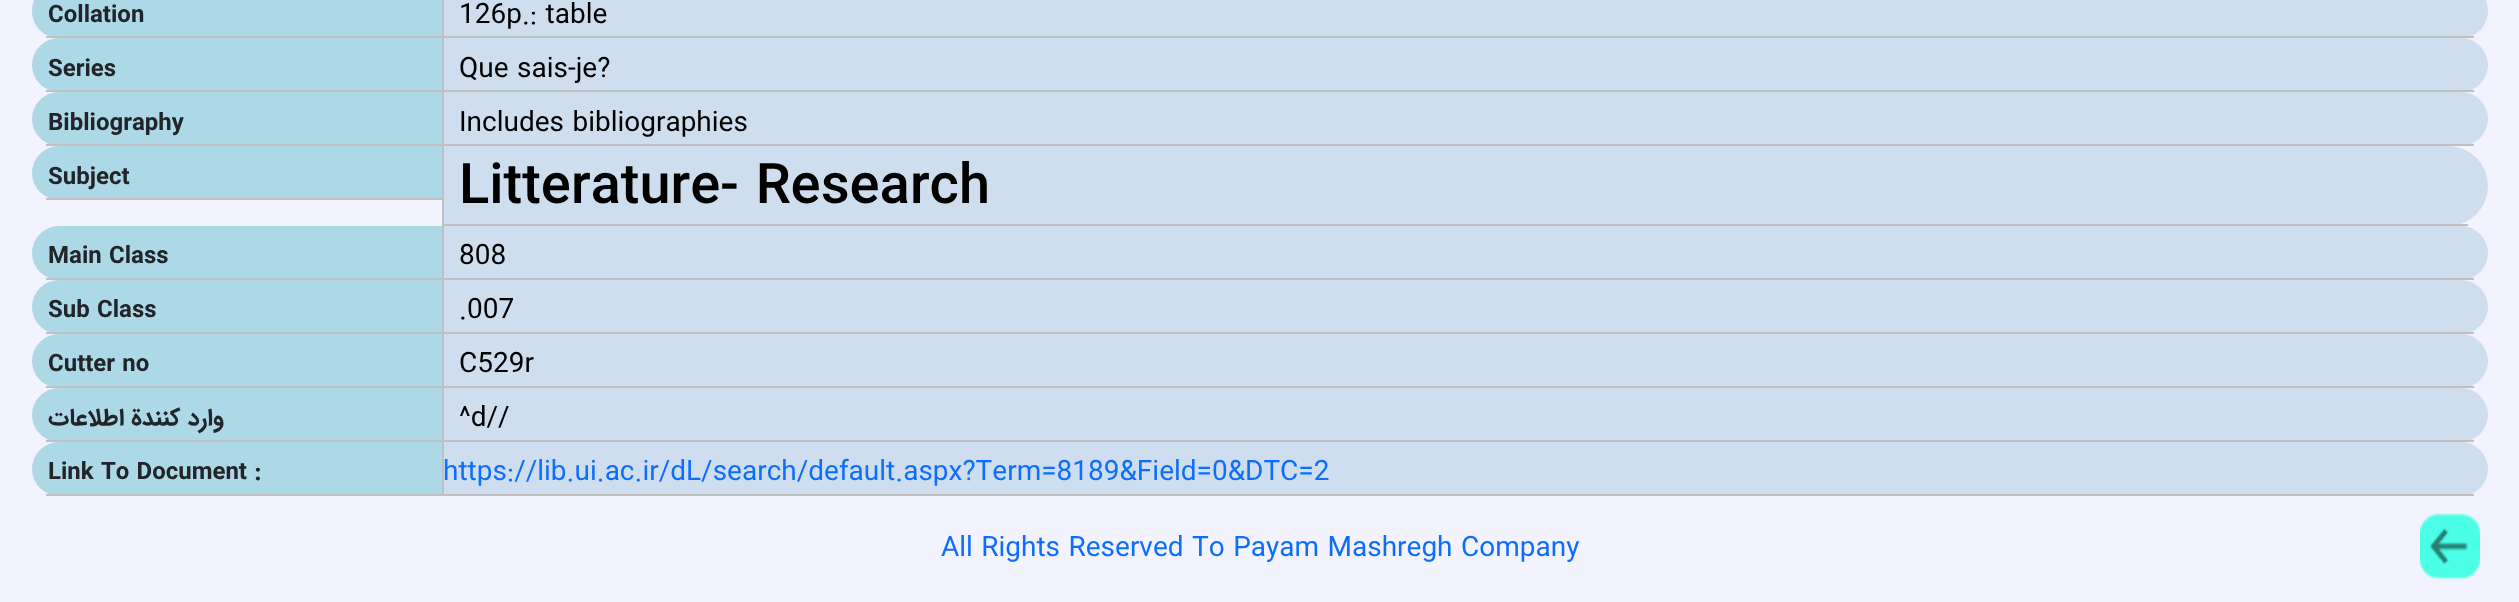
async function draw(canvas) {
	canvas.width = 2519;
	canvas.height = 602;
	const c = canvas.getContext('2d');
	c.miterLimit = 4;
	c.fontKerning = 'normal';
	async function loadImage(src) {
		const img = new Image();
		img.src = src;
		await img.decode();
		return img;
	}

	c.fillStyle = '#f3f3ff';
	c.fillRect(0, 0, 2519, 602);
	c.fillStyle = '#add8e6';
	c.beginPath();
	c.moveTo(59, -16);
	c.lineTo(442, -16);
	c.lineTo(442, 38);
	c.lineTo(59, 38);
	c.bezierCurveTo(44, 38, 32, 26, 32, 11);
	c.bezierCurveTo(32, -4, 44, -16, 59, -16);
	c.closePath();
	c.fill();
	c.fillStyle = '#c0c0c0';
	c.fillRect(46, 36, 396, 2);
	c.font = 'bold 24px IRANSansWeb';
	c.fillStyle = '#212529';
	c.fillText('Collation', 48, 22);
	c.fillStyle = '#cedeef';
	c.beginPath();
	c.moveTo(442, -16);
	c.lineTo(2461, -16);
	c.bezierCurveTo(2476, -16, 2488, -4, 2488, 11);
	c.bezierCurveTo(2488, 26, 2476, 38, 2461, 38);
	c.lineTo(442, 38);
	c.closePath();
	c.fill();
	c.fillStyle = '#c0c0c0';
	c.fillRect(442, 36, 2032, 2);
	c.fillRect(442, 0, 2, 38);
	c.font = '28px IRANSansWeb';
	c.fillStyle = '#000';
	c.fillText('126p.: table', 459, 23);
	c.fillStyle = '#add8e6';
	c.beginPath();
	c.roundRect(32, 38, 410, 54, [27, 0, 0, 27]);
	c.fill();
	c.fillStyle = '#c0c0c0';
	c.fillRect(46, 90, 396, 2);
	c.font = 'bold 24px IRANSansWeb';
	c.fillStyle = '#212529';
	c.fillText('Series', 48, 76);
	c.fillStyle = '#cedeef';
	c.beginPath();
	c.roundRect(442, 38, 2046, 54, [0, 27, 27, 0]);
	c.fill();
	c.fillStyle = '#c0c0c0';
	c.fillRect(442, 90, 2032, 2);
	c.fillRect(442, 38, 2, 54);
	c.font = '28px IRANSansWeb';
	c.fillStyle = '#000';
	c.fillText('Que sais-je?', 459, 77);
	c.fillStyle = '#add8e6';
	c.beginPath();
	c.roundRect(32, 92, 410, 54, [27, 0, 0, 27]);
	c.fill();
	c.fillStyle = '#c0c0c0';
	c.fillRect(46, 144, 396, 2);
	c.font = 'bold 24px IRANSansWeb';
	c.fillStyle = '#212529';
	c.fillText('Bibliography', 48, 130);
	c.fillStyle = '#cedeef';
	c.beginPath();
	c.roundRect(442, 92, 2046, 54, [0, 27, 27, 0]);
	c.fill();
	c.fillStyle = '#c0c0c0';
	c.fillRect(442, 144, 2032, 2);
	c.fillRect(442, 92, 2, 54);
	c.font = '28px IRANSansWeb';
	c.fillStyle = '#000';
	c.fillText('Includes bibliographies', 459, 131);
	c.fillStyle = '#add8e6';
	c.beginPath();
	c.roundRect(32, 146, 410, 54, [27, 0, 0, 27]);
	c.fill();
	c.fillStyle = '#c0c0c0';
	c.fillRect(46, 198, 396, 2);
	c.font = 'bold 24px IRANSansWeb';
	c.fillStyle = '#212529';
	c.fillText('Subject', 48, 184);
	c.fillStyle = '#cedeef';
	c.beginPath();
	c.roundRect(442, 146, 2046, 80, [0, 40, 40, 0]);
	c.fill();
	c.fillStyle = '#c0c0c0';
	c.fillRect(442, 224, 2026, 2);
	c.fillRect(442, 146, 2, 80);
	c.font = '500 56px IRANSansWeb';
	c.fillStyle = '#000';
	c.fillText('Litterature- Research', 459, 203);
	c.fillStyle = '#add8e6';
	c.beginPath();
	c.roundRect(32, 226, 410, 54, [27, 0, 0, 27]);
	c.fill();
	c.fillStyle = '#c0c0c0';
	c.fillRect(46, 278, 396, 2);
	c.font = 'bold 24px IRANSansWeb';
	c.fillStyle = '#212529';
	c.fillText('Main Class', 48, 263);
	c.fillStyle = '#cedeef';
	c.beginPath();
	c.roundRect(442, 226, 2046, 54, [0, 27, 27, 0]);
	c.fill();
	c.fillStyle = '#c0c0c0';
	c.fillRect(442, 278, 2032, 2);
	c.fillRect(442, 226, 2, 54);
	c.font = '28px IRANSansWeb';
	c.fillStyle = '#000';
	c.fillText('808', 459, 264);
	c.fillStyle = '#add8e6';
	c.beginPath();
	c.roundRect(32, 280, 410, 54, [27, 0, 0, 27]);
	c.fill();
	c.fillStyle = '#c0c0c0';
	c.fillRect(46, 332, 396, 2);
	c.font = 'bold 24px IRANSansWeb';
	c.fillStyle = '#212529';
	c.fillText('Sub Class', 48, 317);
	c.fillStyle = '#cedeef';
	c.beginPath();
	c.roundRect(442, 280, 2046, 54, [0, 27, 27, 0]);
	c.fill();
	c.fillStyle = '#c0c0c0';
	c.fillRect(442, 332, 2032, 2);
	c.fillRect(442, 280, 2, 54);
	c.font = '28px IRANSansWeb';
	c.fillStyle = '#000';
	c.fillText('.007', 459, 318);
	c.fillStyle = '#add8e6';
	c.beginPath();
	c.roundRect(32, 334, 410, 54, [27, 0, 0, 27]);
	c.fill();
	c.fillStyle = '#c0c0c0';
	c.fillRect(46, 386, 396, 2);
	c.font = 'bold 24px IRANSansWeb';
	c.fillStyle = '#212529';
	c.fillText('Cutter no', 48, 371);
	c.fillStyle = '#cedeef';
	c.beginPath();
	c.roundRect(442, 334, 2046, 54, [0, 27, 27, 0]);
	c.fill();
	c.fillStyle = '#c0c0c0';
	c.fillRect(442, 386, 2032, 2);
	c.fillRect(442, 334, 2, 54);
	c.font = '28px IRANSansWeb';
	c.fillStyle = '#000';
	c.fillText('C529r', 459, 372);
	c.fillStyle = '#add8e6';
	c.beginPath();
	c.roundRect(32, 388, 410, 54, [27, 0, 0, 27]);
	c.fill();
	c.fillStyle = '#c0c0c0';
	c.fillRect(46, 440, 396, 2);
	c.direction = 'rtl';
	c.font = 'bold 24px IRANSansWeb';
	c.fillStyle = '#212529';
	c.fillText('وارد كنندة اطلاعات', 224, 425);
	c.fillStyle = '#cedeef';
	c.beginPath();
	c.roundRect(442, 388, 2046, 54, [0, 27, 27, 0]);
	c.fill();
	c.fillStyle = '#c0c0c0';
	c.fillRect(442, 440, 2032, 2);
	c.fillRect(442, 388, 2, 54);
	c.direction = 'ltr';
	c.font = '28px IRANSansWeb';
	c.fillStyle = '#000';
	c.fillText('^d//', 459, 426);
	c.fillStyle = '#add8e6';
	c.beginPath();
	c.roundRect(32, 442, 410, 54, [27, 0, 0, 27]);
	c.fill();
	c.fillStyle = '#c0c0c0';
	c.fillRect(46, 494, 396, 2);
	c.font = 'bold 24px IRANSansWeb';
	c.fillStyle = '#212529';
	c.fillText('Link To Document :', 48, 479);
	c.fillStyle = '#cedeef';
	c.beginPath();
	c.roundRect(442, 442, 2046, 54, [0, 27, 27, 0]);
	c.fill();
	c.fillStyle = '#c0c0c0';
	c.fillRect(442, 494, 2032, 2);
	c.fillRect(442, 442, 2, 54);
	c.font = '28px IRANSansWeb';
	c.fillStyle = '#0d6efd';
	c.fillText('https://lib.ui.ac.ir/dL/search/default.aspx?Term=8189&Field=0&DTC=2', 443, 480);
	c.fillText('All Rights Reserved To Payam Mashregh Company', 941, 556);
	c.drawImage(await loadImage('img1.png'), 2420, 513, 60, 68);
}

draw(document.querySelector('canvas'));
